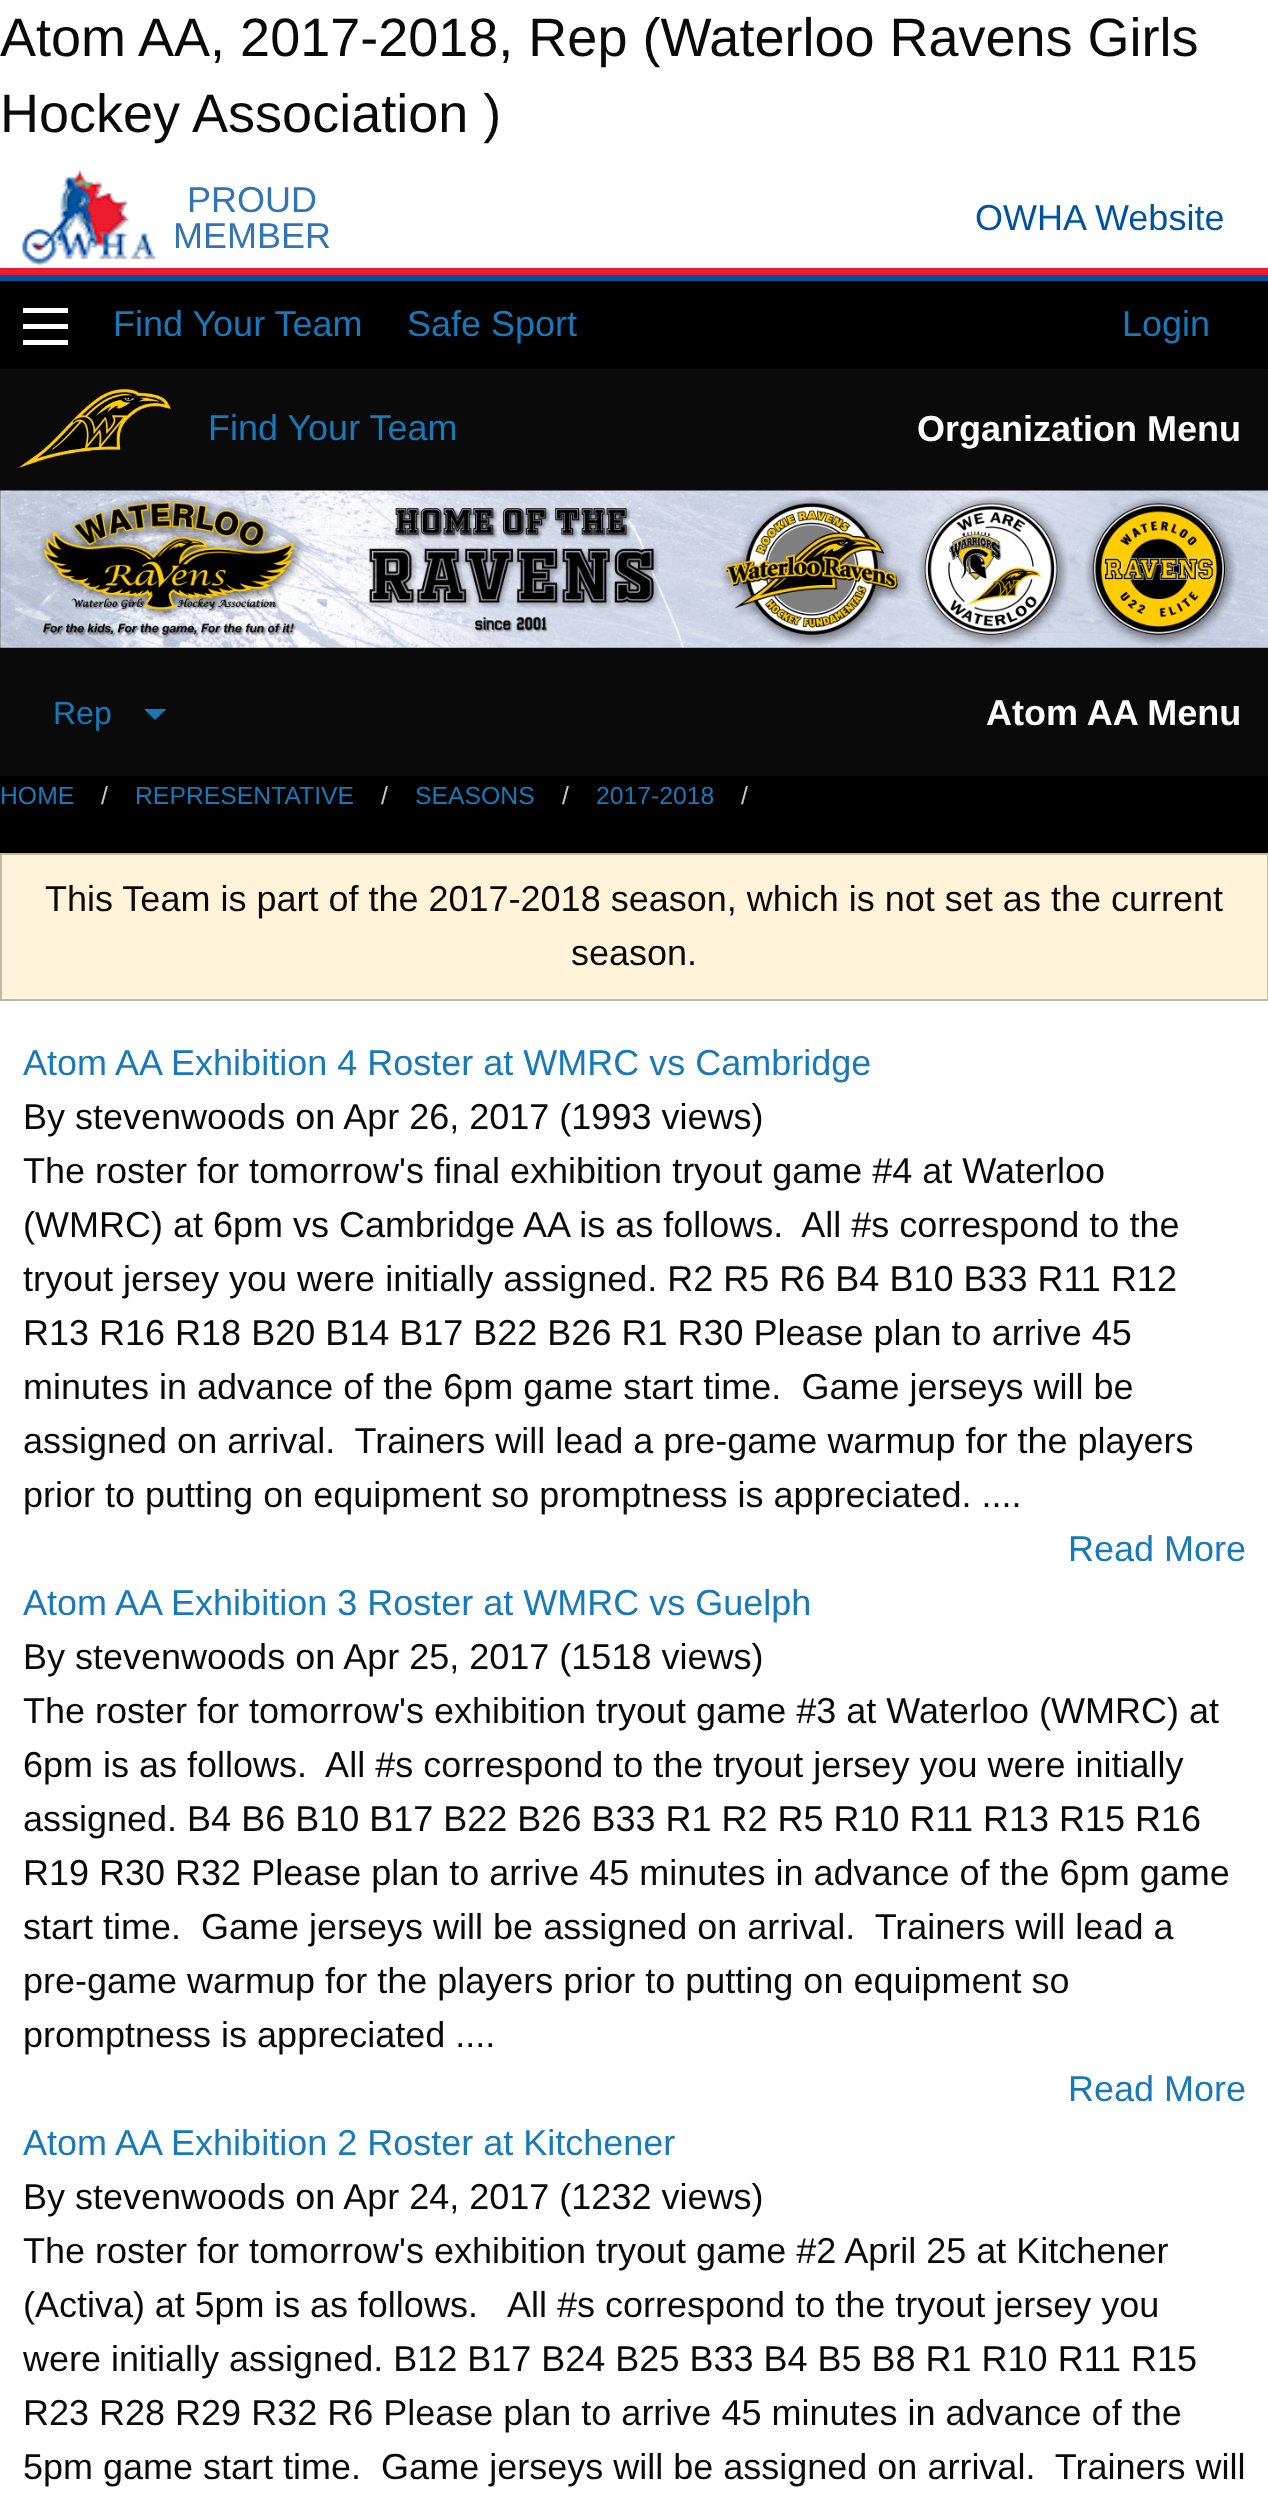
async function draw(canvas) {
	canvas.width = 1268;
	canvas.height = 2497;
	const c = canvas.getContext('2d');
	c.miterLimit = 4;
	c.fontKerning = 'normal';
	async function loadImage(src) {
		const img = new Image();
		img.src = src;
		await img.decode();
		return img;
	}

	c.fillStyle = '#fff';
	c.fillRect(0, 0, 1268, 2497);
	c.font = '54px Liberation Sans';
	c.fillStyle = '#0a0a0a';
	c.fillText('Atom AA, 2017-2018, Rep (Waterloo Ravens Girls', 0, 56);
	c.fillText('Hockey Association )', 0, 132);
	c.drawImage(await loadImage('img1.png'), 22, 168, 134, 98);
	c.font = '36px Liberation Sans';
	c.fillStyle = '#3375b2';
	c.fillText('PROUD', 187, 212);
	c.fillText('MEMBER', 173, 248);
	c.fillStyle = '#00539f';
	c.fillText('OWHA Website', 975, 230);
	for (const [x, y, w, h, color] of [
		[0, 268, 1268, 7, '#ed1b2d'],
		[0, 275, 1268, 6, '#00539f'],
		[0, 281, 1268, 572, '#000'],
		[23, 340, 45, 5, '#fefefe'],
		[23, 324, 45, 5, '#fefefe'],
		[23, 308, 45, 5, '#fefefe'],
	]) {
		c.fillStyle = color;
		c.fillRect(x, y, w, h);
	}
	c.fillStyle = '#1779ba';
	for (const [text, x, y] of [
		['Find Your Team', 113, 336],
		['Safe Sport', 407, 336],
		['Login', 1122, 336],
	]) {
		c.fillText(text, x, y);
	}
	c.fillStyle = '#0a0a0a';
	c.fillRect(0, 369, 1268, 122);
	c.drawImage(await loadImage('img2.png'), 18, 389, 153, 79);
	c.fillStyle = '#1779ba';
	c.fillText('Find Your Team', 208, 440);
	c.font = 'bold 36px Liberation Sans';
	c.fillStyle = '#fefefe';
	c.fillText('Organization Menu', 917, 441);
	c.drawImage(await loadImage('img3.png'), 0, 490, 1268, 158);
	c.fillStyle = '#0a0a0a';
	c.fillRect(0, 648, 1268, 128);
	c.font = '32px Liberation Sans';
	c.fillStyle = '#1779ba';
	c.fillText('Rep', 53, 724);
	c.beginPath();
	c.moveTo(144, 709);
	c.lineTo(166.5, 709);
	c.lineTo(155, 720);
	c.closePath();
	c.fill();
	c.font = 'bold 36px Liberation Sans';
	c.fillStyle = '#fefefe';
	c.fillText('Atom AA Menu', 986, 725);
	c.font = '24.75px Liberation Sans';
	c.fillStyle = '#1779ba';
	c.fillText('HOME', 0, 804);
	c.fillStyle = '#cacaca';
	c.fillText('/', 101, 804);
	c.fillStyle = '#1779ba';
	c.fillText('REPRESENTATIVE', 135, 804);
	c.fillStyle = '#cacaca';
	c.fillText('/', 381, 804);
	c.fillStyle = '#1779ba';
	c.fillText('SEASONS', 415, 804);
	c.fillStyle = '#cacaca';
	c.fillText('/', 562, 804);
	c.fillStyle = '#1779ba';
	c.fillText('2017-2018', 596, 804);
	c.fillStyle = '#cacaca';
	c.fillText('/', 741, 804);
	c.fillStyle = '#fff3d9';
	c.beginPath();
	c.rect(1, 854, 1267, 146);
	c.fill();
	c.strokeStyle = '#c2b9a5';
	c.lineWidth = 2;
	c.stroke();
	c.font = '36px Liberation Sans';
	c.fillStyle = '#0a0a0a';
	c.fillText('This Team is part of the 2017-2018 season, which is not set as the current', 45, 911);
	c.fillText('season.', 571, 965);
	c.fillStyle = '#1779ba';
	c.fillText('Atom AA Exhibition 4 Roster at WMRC vs Cambridge', 23, 1075);
	c.fillStyle = '#0a0a0a';
	for (const [text, x, y] of [
		['By stevenwoods on Apr 26, 2017 (1993 views)', 23, 1129],
		['The roster for tomorrow\'s final exhibition tryout game #4 at Waterloo', 23, 1183],
		['(WMRC) at 6pm vs Cambridge AA is as follows.  All #s correspond to the', 23, 1237],
		['tryout jersey you were initially assigned. R2 R5 R6 B4 B10 B33 R11 R12', 23, 1291],
		['R13 R16 R18 B20 B14 B17 B22 B26 R1 R30 Please plan to arrive 45', 23, 1345],
		['minutes in advance of the 6pm game start time.  Game jerseys will be', 23, 1399],
		['assigned on arrival.  Trainers will lead a pre-game warmup for the players', 23, 1453],
		['prior to putting on equipment so promptness is appreciated. ....', 23, 1507],
	]) {
		c.fillText(text, x, y);
	}
	c.fillStyle = '#1779ba';
	c.fillText('Read More', 1068, 1561);
	c.fillText('Atom AA Exhibition 3 Roster at WMRC vs Guelph', 23, 1615);
	c.fillStyle = '#0a0a0a';
	for (const [text, x, y] of [
		['By stevenwoods on Apr 25, 2017 (1518 views)', 23, 1669],
		['The roster for tomorrow\'s exhibition tryout game #3 at Waterloo (WMRC) at', 23, 1723],
		['6pm is as follows.  All #s correspond to the tryout jersey you were initially', 23, 1777],
		['assigned. B4 B6 B10 B17 B22 B26 B33 R1 R2 R5 R10 R11 R13 R15 R16', 23, 1831],
		['R19 R30 R32 Please plan to arrive 45 minutes in advance of the 6pm game', 23, 1885],
		['start time.  Game jerseys will be assigned on arrival.  Trainers will lead a', 23, 1939],
		['pre-game warmup for the players prior to putting on equipment so', 23, 1993],
		['promptness is appreciated ....', 23, 2047],
	]) {
		c.fillText(text, x, y);
	}
	c.fillStyle = '#1779ba';
	c.fillText('Read More', 1068, 2101);
	c.fillText('Atom AA Exhibition 2 Roster at Kitchener', 23, 2155);
	c.fillStyle = '#0a0a0a';
	c.fillText('By stevenwoods on Apr 24, 2017 (1232 views)', 23, 2209);
	c.fillText('The roster for tomorrow\'s exhibition tryout game #2 April 25 at Kitchener', 23, 2263);
	c.wordSpacing = '-0.25px';
	c.fillText('(Activa) at 5pm is as follows.', 23, 2317);
	c.wordSpacing = '0px';
	for (const [text, x, y] of [
		['All #s correspond to the tryout jersey you', 507, 2317],
		['were initially assigned. B12 B17 B24 B25 B33 B4 B5 B8 R1 R10 R11 R15', 23, 2371],
		['R23 R28 R29 R32 R6 Please plan to arrive 45 minutes in advance of the', 23, 2425],
		['5pm game start time.  Game jerseys will be assigned on arrival.  Trainers will', 23, 2479],
	]) {
		c.fillText(text, x, y);
	}
}

draw(document.querySelector('canvas'));
